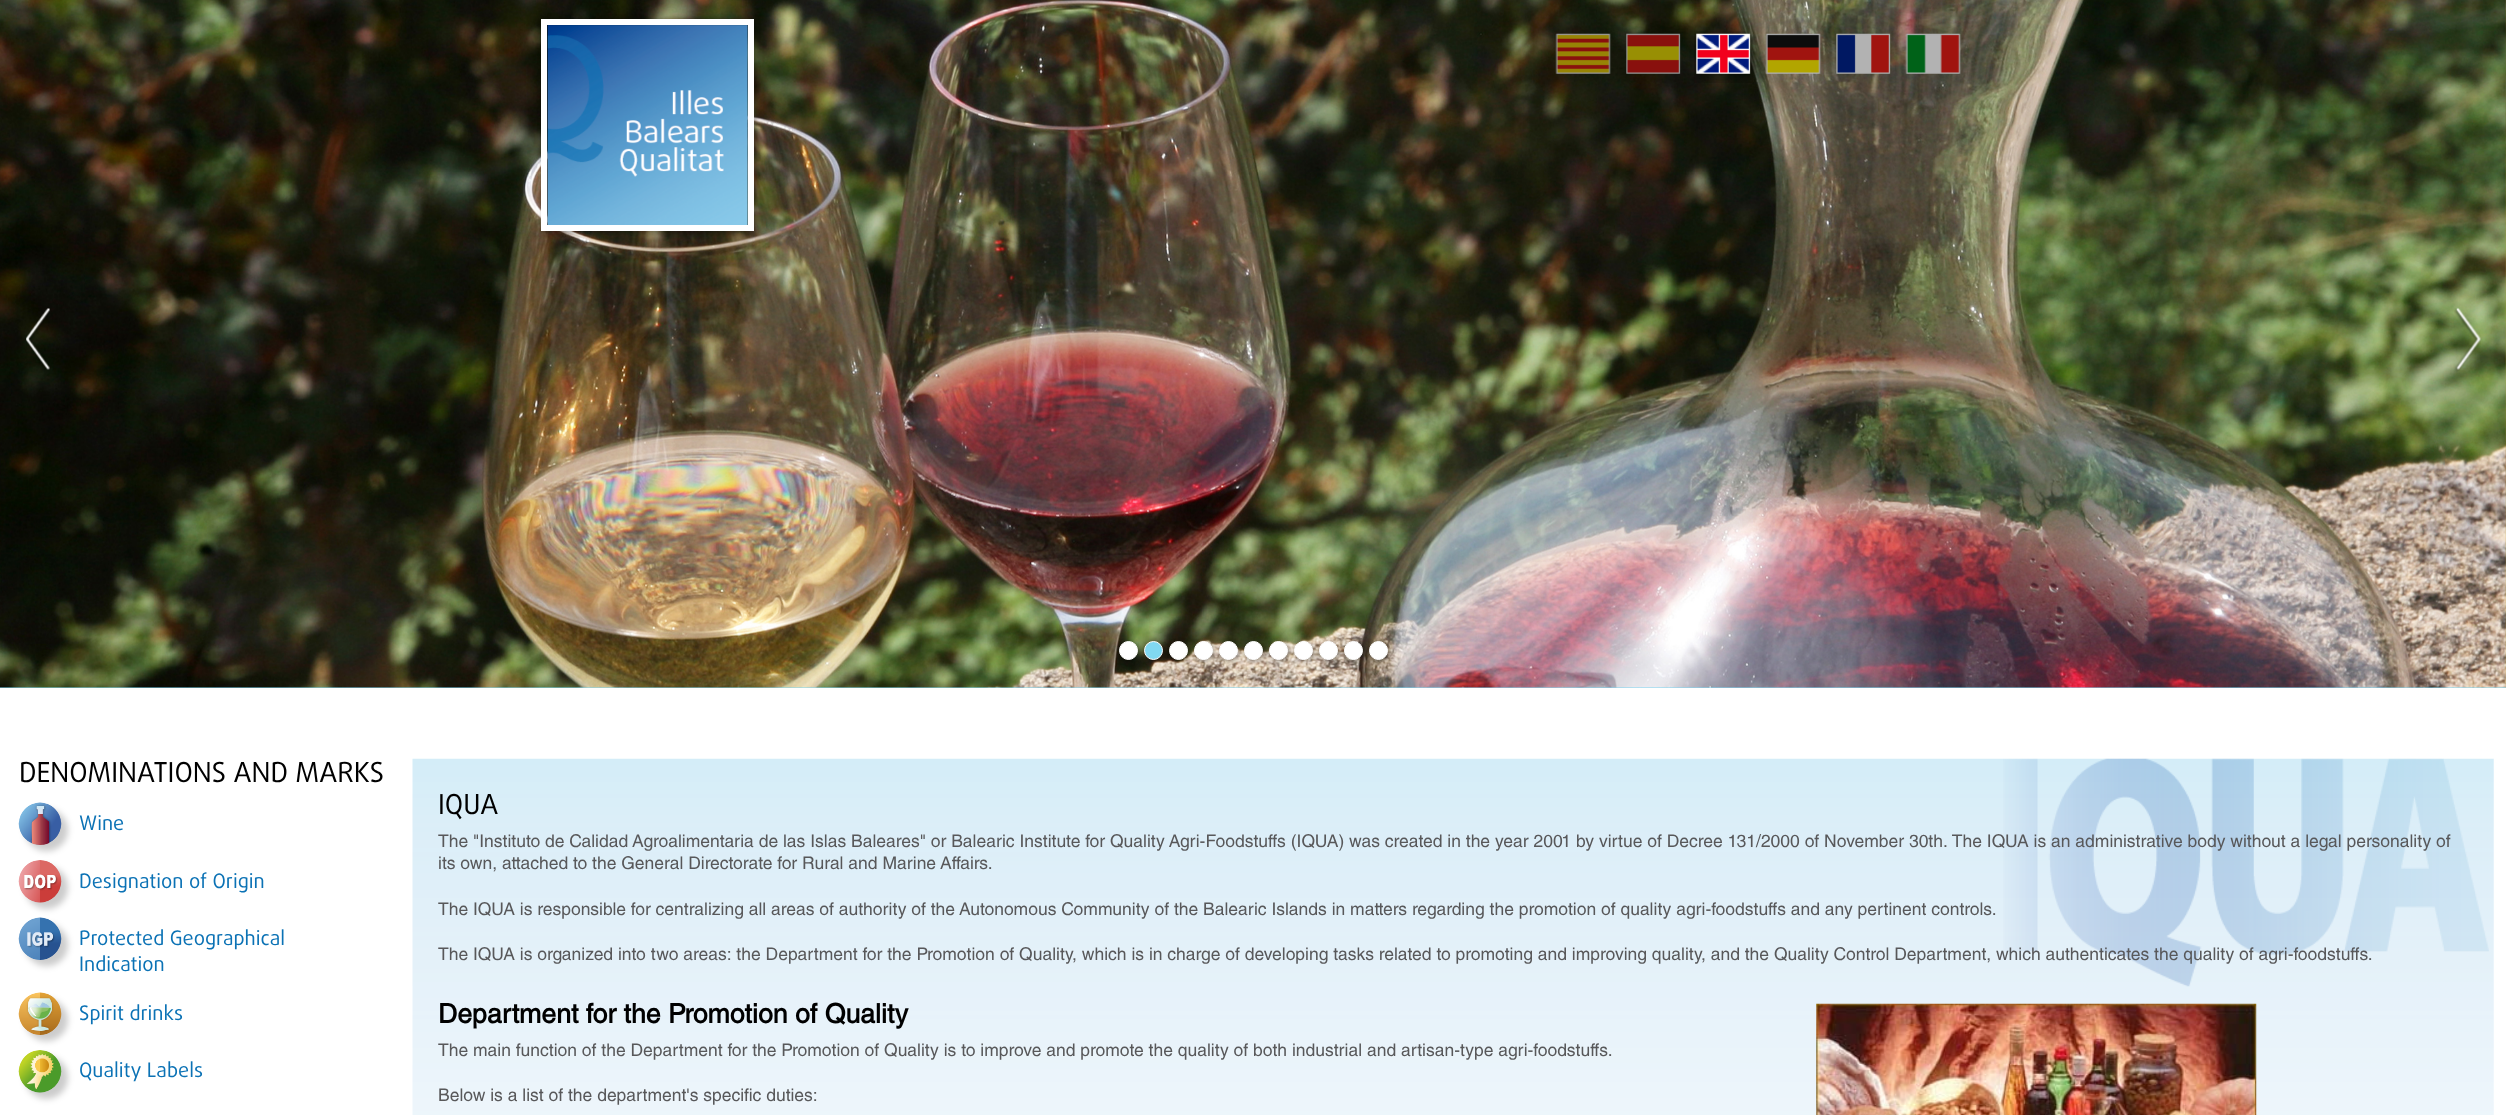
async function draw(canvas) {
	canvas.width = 2506;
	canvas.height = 1115;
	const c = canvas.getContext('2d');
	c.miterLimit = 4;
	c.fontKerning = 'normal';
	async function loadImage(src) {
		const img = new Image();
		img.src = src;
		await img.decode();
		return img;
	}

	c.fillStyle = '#fff';
	c.fillRect(0, 0, 2506, 1115);
	c.fillStyle = '#81d8f1';
	c.fillRect(0, 687, 2506, 1);
	c.drawImage(await loadImage('img1.png'), 0, 0, 2506, 688);
	c.drawImage(await loadImage('img2.png'), 2505, 0, 1, 688);
	c.drawImage(await loadImage('img3.png'), 26, 308, 24, 62);
	c.drawImage(await loadImage('img4.png'), 2454, 308, 27, 64);
	c.fillStyle = '#00000066';
	c.filter = 'blur(2.5px)';
	c.beginPath();
	c.roundRect(1120, 643, 19, 18, 9);
	c.fill();
	c.filter = 'none';
	c.fillStyle = '#fff';
	c.beginPath();
	c.arc(1128.5, 650.5, 9, 0, 2 * Math.PI);
	c.fill();
	c.strokeStyle = '#fff';
	c.stroke();
	c.fillStyle = '#00000066';
	c.filter = 'blur(2.5px)';
	c.beginPath();
	c.roundRect(1145, 643, 19, 18, 9);
	c.fill();
	c.filter = 'none';
	c.fillStyle = '#81d8f1';
	c.beginPath();
	c.arc(1153.5, 650.5, 9, 0, 2 * Math.PI);
	c.fill();
	c.stroke();
	c.fillStyle = '#00000066';
	c.filter = 'blur(2.5px)';
	c.beginPath();
	c.roundRect(1170, 643, 19, 18, 9);
	c.fill();
	c.filter = 'none';
	c.fillStyle = '#fff';
	c.beginPath();
	c.arc(1178.5, 650.5, 9, 0, 2 * Math.PI);
	c.fill();
	c.stroke();
	c.fillStyle = '#00000066';
	c.filter = 'blur(2.5px)';
	c.beginPath();
	c.roundRect(1195, 643, 19, 18, 9);
	c.fill();
	c.filter = 'none';
	c.fillStyle = '#fff';
	c.beginPath();
	c.arc(1203.5, 650.5, 9, 0, 2 * Math.PI);
	c.fill();
	c.stroke();
	c.fillStyle = '#00000066';
	c.filter = 'blur(2.5px)';
	c.beginPath();
	c.roundRect(1220, 643, 19, 18, 9);
	c.fill();
	c.filter = 'none';
	c.fillStyle = '#fff';
	c.beginPath();
	c.arc(1228.5, 650.5, 9, 0, 2 * Math.PI);
	c.fill();
	c.stroke();
	c.fillStyle = '#00000066';
	c.filter = 'blur(2.5px)';
	c.beginPath();
	c.roundRect(1245, 643, 19, 18, 9);
	c.fill();
	c.filter = 'none';
	c.fillStyle = '#fff';
	c.beginPath();
	c.arc(1253.5, 650.5, 9, 0, 2 * Math.PI);
	c.fill();
	c.stroke();
	c.fillStyle = '#00000066';
	c.filter = 'blur(2.5px)';
	c.beginPath();
	c.roundRect(1270, 643, 19, 18, 9);
	c.fill();
	c.filter = 'none';
	c.fillStyle = '#fff';
	c.beginPath();
	c.arc(1278.5, 650.5, 9, 0, 2 * Math.PI);
	c.fill();
	c.stroke();
	c.fillStyle = '#00000066';
	c.filter = 'blur(2.5px)';
	c.beginPath();
	c.roundRect(1295, 643, 19, 18, 9);
	c.fill();
	c.filter = 'none';
	c.fillStyle = '#fff';
	c.beginPath();
	c.arc(1303.5, 650.5, 9, 0, 2 * Math.PI);
	c.fill();
	c.stroke();
	c.fillStyle = '#00000066';
	c.filter = 'blur(2.5px)';
	c.beginPath();
	c.roundRect(1320, 643, 19, 18, 9);
	c.fill();
	c.filter = 'none';
	c.fillStyle = '#fff';
	c.beginPath();
	c.arc(1328.5, 650.5, 9, 0, 2 * Math.PI);
	c.fill();
	c.stroke();
	c.fillStyle = '#00000066';
	c.filter = 'blur(2.5px)';
	c.beginPath();
	c.roundRect(1345, 643, 19, 18, 9);
	c.fill();
	c.filter = 'none';
	c.fillStyle = '#fff';
	c.beginPath();
	c.arc(1353.5, 650.5, 9, 0, 2 * Math.PI);
	c.fill();
	c.stroke();
	c.fillStyle = '#00000066';
	c.filter = 'blur(2.5px)';
	c.beginPath();
	c.roundRect(1370, 643, 19, 18, 9);
	c.fill();
	c.filter = 'none';
	c.fillStyle = '#fff';
	c.beginPath();
	c.arc(1378.5, 650.5, 9, 0, 2 * Math.PI);
	c.fill();
	c.stroke();
	c.fillStyle = '#00000066';
	c.filter = 'blur(2.5px)';
	c.beginPath();
	c.rect(543, 20, 212, 213);
	c.fill();
	c.filter = 'none';
	c.drawImage(await loadImage('img5.png'), 547, 25, 201, 200);
	c.lineWidth = 6;
	c.strokeRect(544, 22, 207, 206);
	c.drawImage(await loadImage('img6.png'), 1555, 33, 56, 41);
	c.drawImage(await loadImage('img7.png'), 1626, 33, 55, 41);
	c.drawImage(await loadImage('img8.png'), 1694, 31, 63, 52);
	c.drawImage(await loadImage('img9.png'), 1765, 33, 56, 41);
	c.drawImage(await loadImage('img10.png'), 1836, 33, 55, 41);
	c.drawImage(await loadImage('img11.png'), 1905, 33, 56, 41);
	c.font = '27.5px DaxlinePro';
	c.fillStyle = '#000';
	c.fillText('DENOMINATIONS AND MARKS', 19, 782);
	c.fillStyle = '#00000033';
	c.filter = 'blur(3px)';
	c.beginPath();
	c.roundRect(25, 809, 43, 42, 21);
	c.fill();
	c.filter = 'none';
	c.drawImage(await loadImage('img12.png'), 18, 802, 44, 43);
	c.font = '20px DaxlinePro';
	c.fillStyle = '#0b72b5';
	c.fillText('Wine', 79, 830);
	c.fillStyle = '#00000033';
	c.filter = 'blur(3px)';
	c.beginPath();
	c.roundRect(25, 866, 43, 43, 21.5);
	c.fill();
	c.filter = 'none';
	c.drawImage(await loadImage('img13.png'), 18, 860, 44, 43);
	c.fillStyle = '#0b72b5';
	c.fillText('Designation of Origin', 79, 888);
	c.fillStyle = '#00000033';
	c.filter = 'blur(3px)';
	c.beginPath();
	c.roundRect(25, 924, 43, 42, 21);
	c.fill();
	c.filter = 'none';
	c.drawImage(await loadImage('img14.png'), 18, 917, 44, 43);
	c.fillStyle = '#0b72b5';
	c.fillText('Protected Geographical', 79, 945);
	c.fillText('Indication', 79, 971);
	c.fillStyle = '#00000033';
	c.filter = 'blur(3px)';
	c.beginPath();
	c.roundRect(25, 999, 43, 42, 21);
	c.fill();
	c.filter = 'none';
	c.drawImage(await loadImage('img15.png'), 18, 992, 44, 43);
	c.fillStyle = '#0b72b5';
	c.fillText('Spirit drinks', 79, 1020);
	c.fillStyle = '#00000033';
	c.filter = 'blur(3px)';
	c.beginPath();
	c.roundRect(25, 1056, 43, 43, 21.5);
	c.fill();
	c.filter = 'none';
	c.drawImage(await loadImage('img16.png'), 18, 1050, 44, 43);
	c.fillStyle = '#0b72b5';
	c.fillText('Quality Labels', 79, 1077);
	c.drawImage(await loadImage('img17.png'), 2003, 758, 486, 229);
	c.drawImage(await loadImage('img18.png'), 412, 758, 2082, 357);
	c.font = '27.5px DaxlinePro';
	c.fillStyle = '#000';
	c.fillText('IQUA', 438, 814);
	c.font = '17.5px Helvetica';
	c.fillStyle = '#58585a';
	for (const [text, x, y] of [
		['The "Instituto de Calidad Agroalimentaria de las Islas Baleares" or Balearic Institute for Quality Agri-Foodstuffs (IQUA) was created in the year 2001 by virtue of Decree 131/2000 of November 30th. The IQUA is an administrative body without a legal personality of', 438, 847],
		['its own, attached to the General Directorate for Rural and Marine Affairs.', 438, 869],
		['The IQUA is responsible for centralizing all areas of authority of the Autonomous Community of the Balearic Islands in matters regarding the promotion of quality agri-foodstuffs and any pertinent controls.', 438, 915],
		['The IQUA is organized into two areas: the Department for the Promotion of Quality, which is in charge of developing tasks related to promoting and improving quality, and the Quality Control Department, which authenticates the quality of agri-foodstuffs.', 438, 960],
	]) {
		c.fillText(text, x, y);
	}
	c.font = 'bold 26.7px Helvetica';
	c.fillStyle = '#000';
	c.fillText('Department for the Promotion of Quality', 438, 1023);
	c.font = '17.5px Helvetica';
	c.fillStyle = '#58585a';
	c.fillText('The main function of the Department for the Promotion of Quality is to improve and promote the quality of both industrial and artisan-type agri-foodstuffs.', 438, 1056);
	c.fillText('Below is a list of the department\'s specific duties:', 438, 1101);
	c.drawImage(await loadImage('img19.png'), 1816, 1003, 441, 112);
}

draw(document.querySelector('canvas'));
